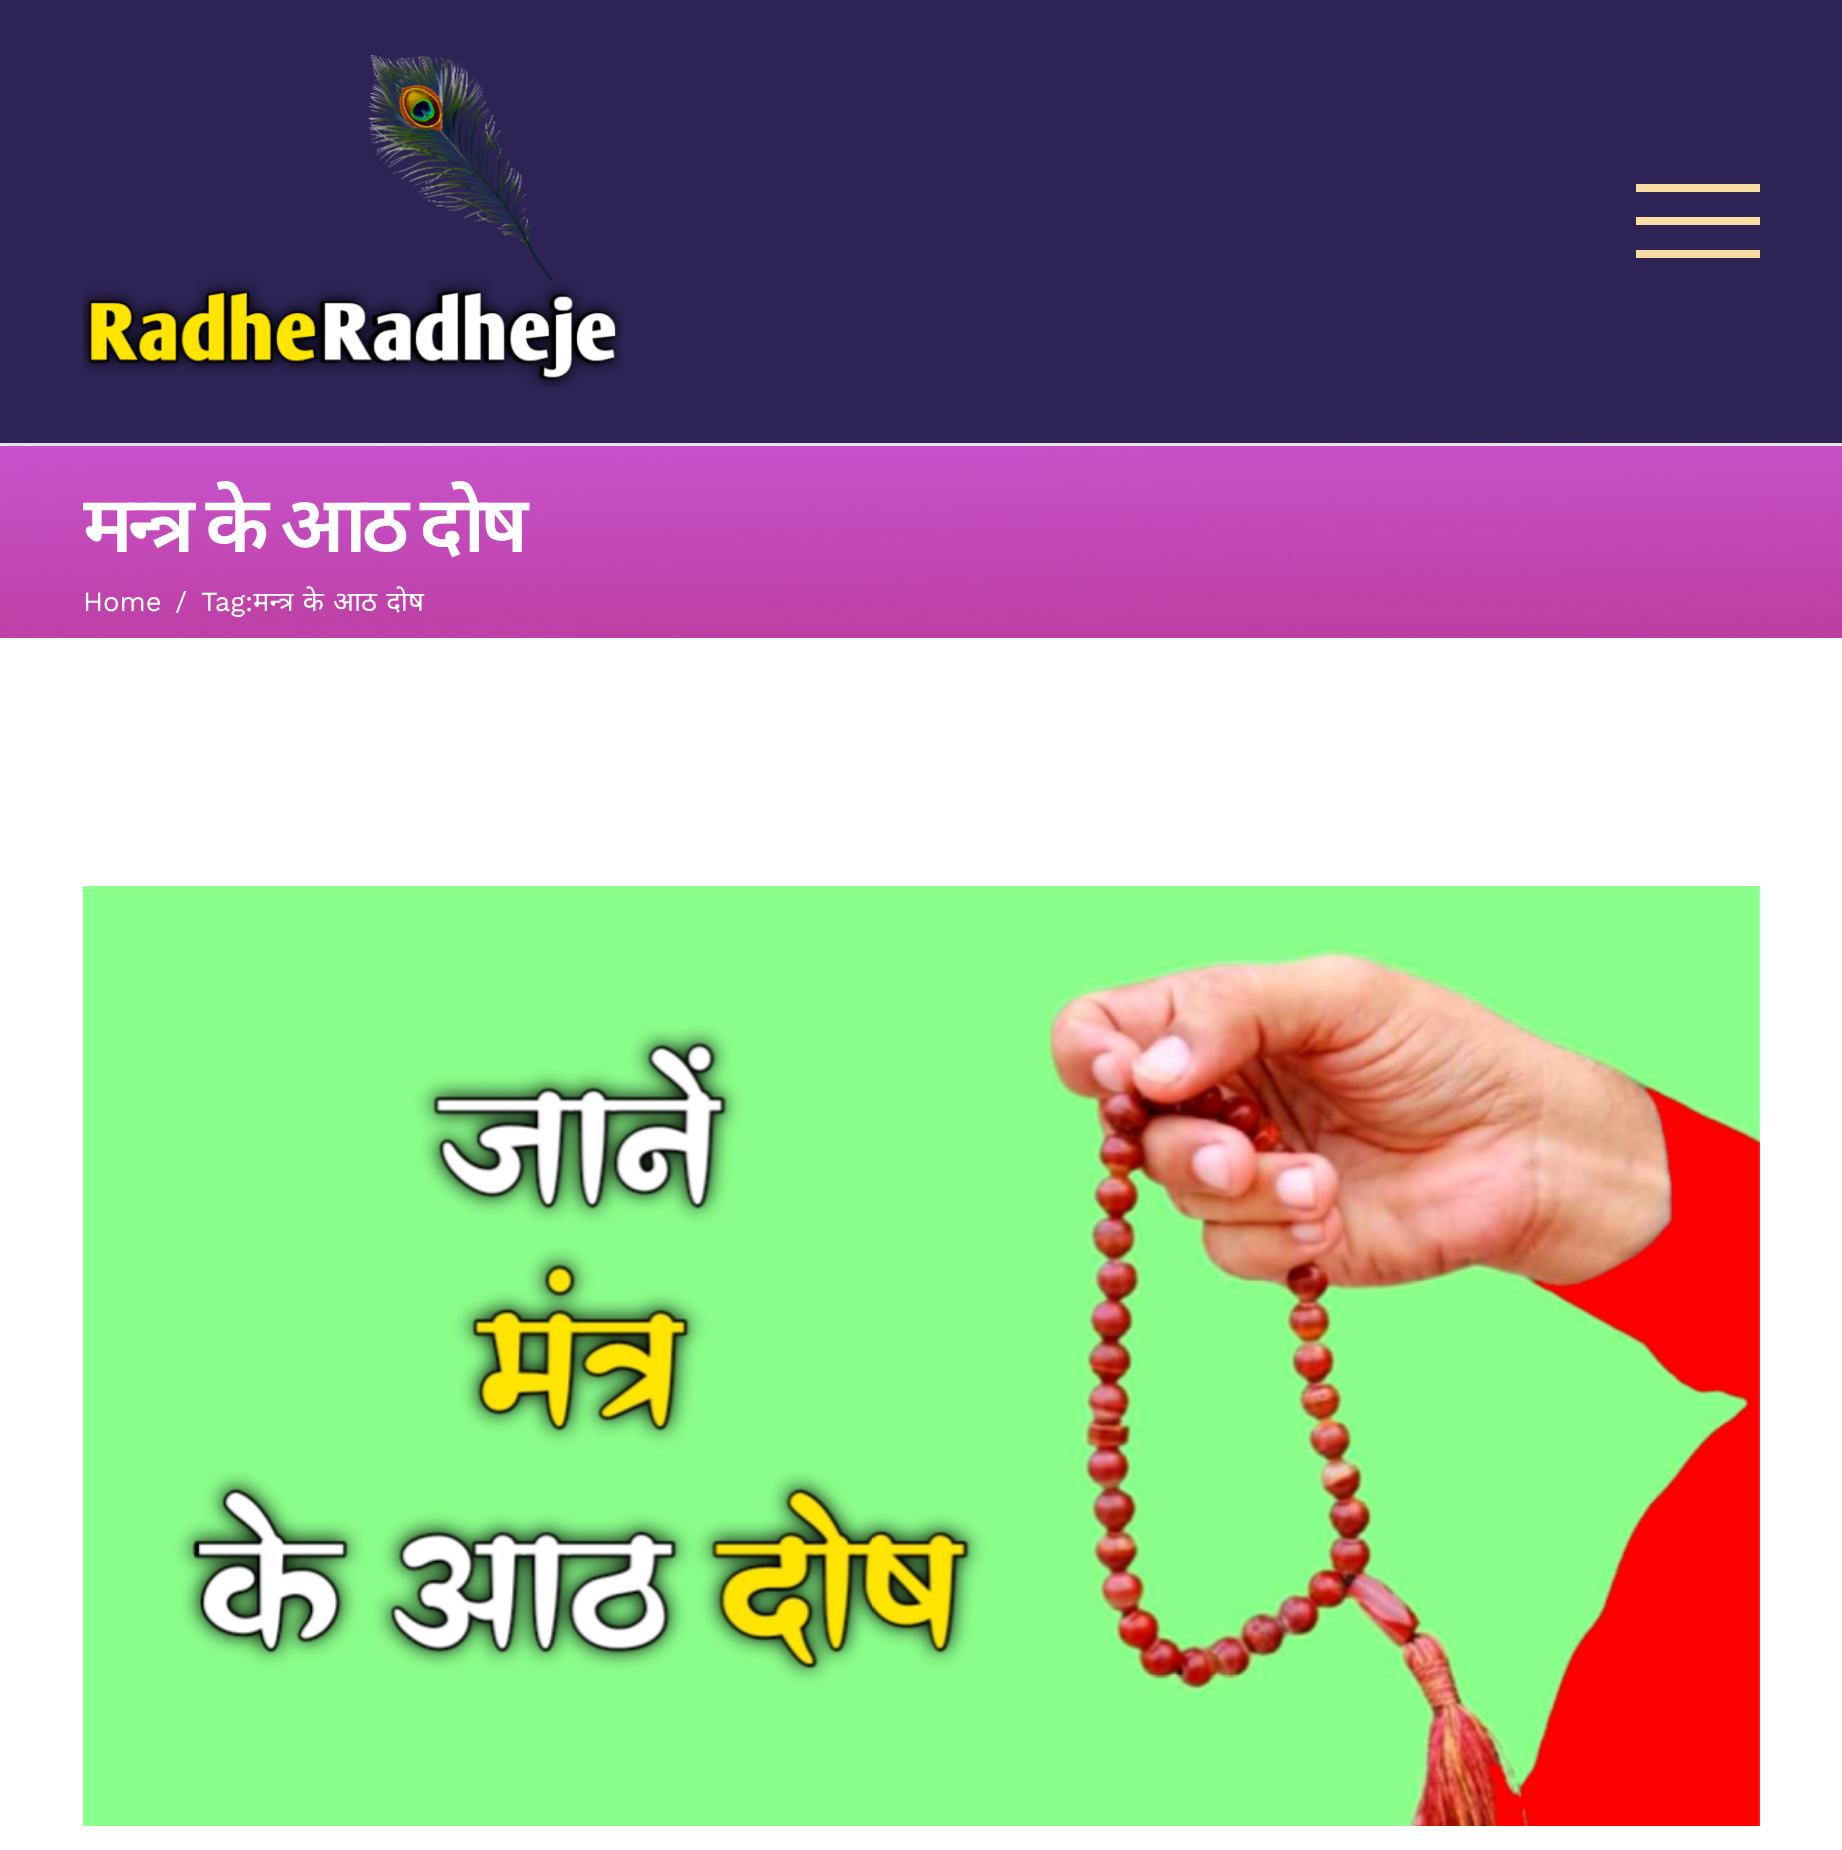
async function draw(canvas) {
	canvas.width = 1842;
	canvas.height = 1850;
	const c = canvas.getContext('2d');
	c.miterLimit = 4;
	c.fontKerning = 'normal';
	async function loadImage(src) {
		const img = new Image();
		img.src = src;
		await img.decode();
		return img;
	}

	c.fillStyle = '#fff';
	c.fillRect(0, 0, 1842, 1850);
	c.fillStyle = '#2d2354';
	c.fillRect(0, 0, 1842, 443);
	c.fillStyle = '#e5e5e5';
	c.fillRect(0, 443, 1842, 3);
	c.drawImage(await loadImage('img1.png'), 83, 55, 539, 333);
	for (const [x, y, w, h, color] of [
		[1636, 184, 124, 8, '#fadda2'],
		[1636, 217, 124, 8, '#fadda2'],
		[1636, 250, 124, 8, '#fadda2'],
	]) {
		c.fillStyle = color;
		c.fillRect(x, y, w, h);
	}
	c.drawImage(await loadImage('img2.png'), 0, 446, 1842, 192);
	c.letterSpacing = '-5.5px';
	c.wordSpacing = '1px';
	c.font = '600 79.25px Noto Sans';
	c.fillStyle = '#fff';
	c.fillText('मन्त्र के आठ दोष', 83, 552);
	c.letterSpacing = '0px';
	c.wordSpacing = '0px';
	c.font = '27.5px Work Sans';
	for (const [text, x, y] of [
		['Home', 83, 611],
		['/', 175, 611],
		['Tag:', 201, 611],
	]) {
		c.fillText(text, x, y);
	}
	c.wordSpacing = '2px';
	c.font = '27.5px Noto Sans';
	c.fillText('मन्त्र के आठ दोष', 253, 611);
	c.drawImage(await loadImage('img3.png'), 83, 886, 1677, 940);
}

draw(document.querySelector('canvas'));
